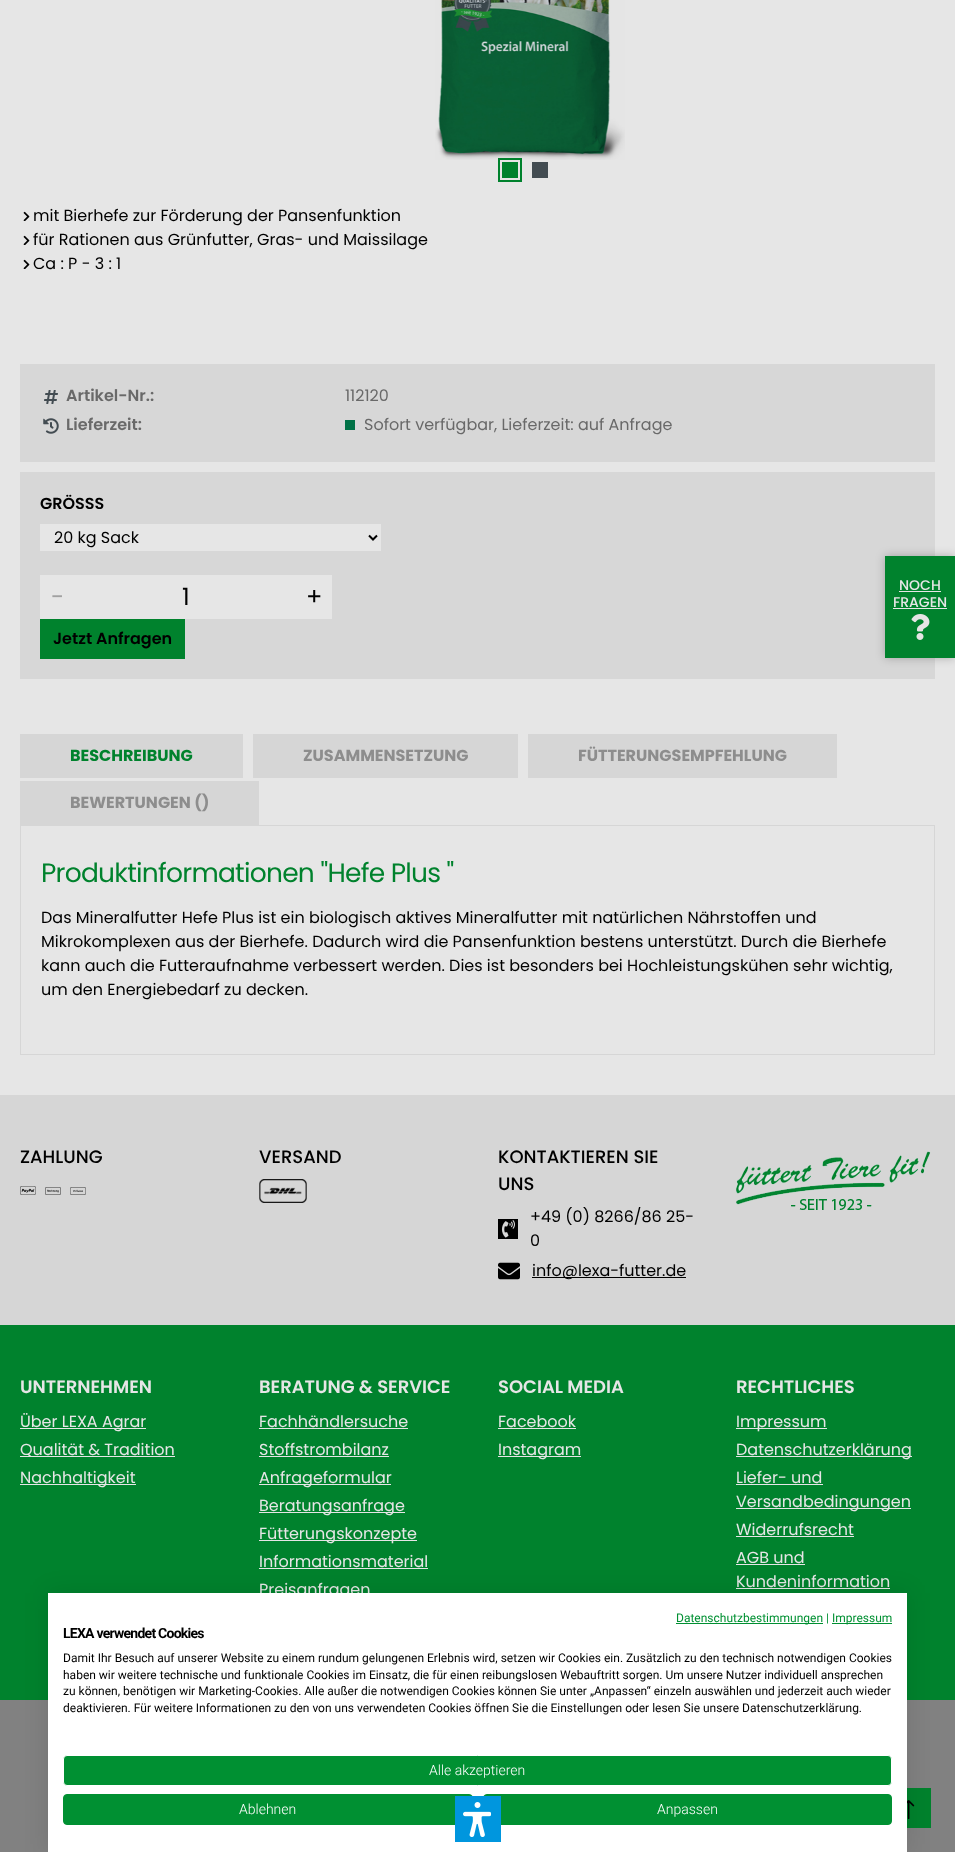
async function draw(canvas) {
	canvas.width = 955;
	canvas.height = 1852;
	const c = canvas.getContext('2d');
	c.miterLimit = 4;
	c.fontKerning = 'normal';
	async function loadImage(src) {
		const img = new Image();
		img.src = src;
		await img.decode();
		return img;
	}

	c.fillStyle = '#e6e6e6';
	c.fillRect(0, 0, 955, 1852);
	c.drawImage(await loadImage('img1.png'), 435, 0, 190, 160);
	c.strokeStyle = '#00822d';
	c.lineWidth = 4;
	c.strokeRect(500, 160, 20, 20);
	c.strokeStyle = '#e6e6e6';
	c.lineWidth = 2;
	c.strokeRect(501, 161, 18, 18);
	c.fillStyle = '#00822d';
	c.fillRect(502, 162, 16, 16);
	c.fillStyle = '#434c52';
	c.fillRect(532, 162, 16, 16);
	c.drawImage(await loadImage('img2.png'), 23, 211, 7, 10);
	c.font = '16px Poppins';
	c.fillStyle = '#000';
	c.fillText('mit Bierhefe zur Förderung der Pansenfunktion', 33, 221);
	c.drawImage(await loadImage('img2.png'), 23, 235, 7, 10);
	c.fillText('für Rationen aus Grünfutter, Gras- und Maissilage', 33, 245);
	c.drawImage(await loadImage('img2.png'), 23, 259, 7, 10);
	c.fillText('Ca : P - 3 : 1', 33, 269);
	c.fillStyle = '#d7d7d7';
	c.fillRect(20, 364, 915, 98);
	c.drawImage(await loadImage('img3.png'), 44, 390, 14, 14);
	c.font = '600 16px Poppins';
	c.fillStyle = '#696969';
	c.fillText('Artikel-Nr.:', 66, 401);
	c.font = '16px Poppins';
	c.fillText('112120', 345, 401);
	c.drawImage(await loadImage('img4.png'), 43, 418, 16, 16);
	c.font = '600 16px Poppins';
	c.fillText('Lieferzeit:', 66, 430);
	c.fillStyle = '#007146';
	c.fillRect(345, 420, 10, 10);
	c.font = '16px Poppins';
	c.fillStyle = '#696969';
	c.fillText('Sofort verfügbar, Lieferzeit: auf Anfrage', 364, 430);
	c.fillStyle = '#d7d7d7';
	c.fillRect(20, 472, 915, 207);
	c.font = '600 16px Poppins';
	c.fillStyle = '#000';
	c.fillText('GRÖSSS', 40, 509);
	c.fillStyle = '#e6e6e6';
	c.fillRect(40, 524, 341, 27);
	c.beginPath();
	c.moveTo(369, 535.5);
	c.lineTo(373, 539.5);
	c.lineTo(377, 535.5);
	c.strokeStyle = '#000';
	c.stroke();
	c.font = '16px Poppins';
	c.fillStyle = '#000';
	c.fillText('20 kg Sack', 54, 543);
	c.fillStyle = '#e6e6e6';
	c.fillRect(40, 575, 292, 44);
	c.font = '24px Poppins';
	c.fillStyle = '#a1a1a1';
	c.fillText('-', 51, 605);
	c.fillStyle = '#000';
	c.fillText('1', 182, 605);
	c.fillText('+', 306, 605);
	c.fillStyle = '#00822d';
	c.fillRect(40, 619, 145, 40);
	c.font = '600 16px Poppins';
	c.fillStyle = '#000';
	c.fillText('Jetzt Anfragen', 53, 644);
	c.fillStyle = '#d6d6d6';
	c.fillRect(20, 734, 223, 44);
	c.font = 'bold 16px Poppins';
	c.fillStyle = '#00822d';
	c.fillText('BESCHREIBUNG', 70, 761);
	c.fillStyle = '#d6d6d6';
	c.fillRect(253, 734, 265, 44);
	c.fillStyle = '#8d8d8d';
	c.fillText('ZUSAMMENSETZUNG', 303, 761);
	c.fillStyle = '#d6d6d6';
	c.fillRect(528, 734, 309, 44);
	c.fillStyle = '#8d8d8d';
	c.fillText('FÜTTERUNGSEMPFEHLUNG', 578, 761);
	c.fillStyle = '#d6d6d6';
	c.fillRect(20, 781, 239, 44);
	c.fillStyle = '#8d8d8d';
	c.fillText('BEWERTUNGEN ()', 70, 808);
	c.strokeStyle = '#d6d6d6';
	c.lineWidth = 1;
	c.strokeRect(20.5, 825.5, 914, 229);
	c.letterSpacing = '-0.75px';
	c.font = '26.5px Poppins';
	c.fillStyle = '#00822d';
	c.fillText('Produktinformationen "Hefe Plus "', 41, 882);
	c.letterSpacing = '0px';
	c.font = '16px Poppins';
	c.fillStyle = '#000';
	for (const [text, x, y] of [
		['Das Mineralfutter Hefe Plus ist ein biologisch aktives Mineralfutter mit natürlichen Nährstoffen und', 41, 923],
		['Mikrokomplexen aus der Bierhefe. Dadurch wird die Pansenfunktion bestens unterstützt. Durch die Bierhefe', 41, 947],
		['kann auch die Futteraufnahme verbessert werden. Dies ist besonders bei Hochleistungskühen sehr wichtig,', 41, 971],
		['um den Energiebedarf zu decken.', 41, 995],
	]) {
		c.fillText(text, x, y);
	}
	c.fillStyle = '#00010040';
	c.filter = 'blur(5px)';
	c.beginPath();
	c.rect(885, 556, 70, 102);
	c.fill();
	c.filter = 'none';
	c.fillStyle = '#00822d';
	c.fillRect(885, 556, 70, 102);
	c.font = '500 14px Poppins';
	c.fillStyle = '#e6e6e6';
	c.fillText('NOCH', 899, 590);
	c.fillRect(899, 591, 42, 1);
	c.fillText('FRAGEN', 893, 607);
	c.fillRect(893, 608, 54, 1);
	c.drawImage(await loadImage('img5.png'), 911, 614, 19, 26);
	c.fillStyle = '#d6d6d6';
	c.fillRect(0, 1095, 955, 230);
	c.font = '500 18px Poppins';
	c.fillStyle = '#000';
	c.fillText('ZAHLUNG', 20, 1163);
	c.drawImage(await loadImage('img6.png'), 20, 1186, 16, 9);
	c.drawImage(await loadImage('img7.png'), 45, 1187, 16, 8);
	c.drawImage(await loadImage('img8.png'), 70, 1187, 16, 8);
	c.fillText('VERSAND', 259, 1163);
	c.drawImage(await loadImage('img9.png'), 259, 1179, 48, 24);
	c.fillText('KONTAKTIEREN SIE', 498, 1163);
	c.fillText('UNS', 498, 1190);
	c.font = '16px Poppins';
	c.fillText('+49 (0) 8266/86 25-', 530, 1222);
	c.drawImage(await loadImage('img10.png'), 498, 1219, 20, 20);
	c.fillText('0', 530, 1246);
	c.drawImage(await loadImage('img11.png'), 498, 1262, 22, 18);
	c.fillRect(532, 1277, 154, 1);
	c.fillText('info@lexa-futter.de', 532, 1276);
	c.drawImage(await loadImage('img12.png'), 736, 1151, 195, 59);
	c.fillStyle = '#00822d';
	c.fillRect(0, 1325, 955, 375);
	c.font = '600 18px Poppins';
	c.fillStyle = '#e6e6e6';
	c.fillText('UNTERNEHMEN', 20, 1393);
	c.fillRect(20, 1428, 126, 1);
	c.font = '16px Poppins';
	c.fillText('Über LEXA Agrar', 20, 1427);
	c.fillRect(20, 1456, 155, 1);
	c.fillText('Qualität & Tradition', 20, 1455);
	c.fillRect(20, 1484, 116, 1);
	c.fillText('Nachhaltigkeit', 20, 1483);
	c.font = '600 18px Poppins';
	c.fillText('BERATUNG & SERVICE', 259, 1393);
	c.font = '16px Poppins';
	c.fillText('Fachhändlersuche', 259, 1427);
	c.fillRect(259, 1428, 149, 1);
	c.fillText('Stoffstrombilanz', 259, 1455);
	c.fillRect(259, 1456, 130, 1);
	c.fillRect(259, 1484, 132, 1);
	c.fillText('Anfrageformular', 259, 1483);
	c.fillRect(259, 1512, 146, 1);
	c.fillText('Beratungsanfrage', 259, 1511);
	c.fillRect(259, 1540, 158, 1);
	c.fillText('Fütterungskonzepte', 259, 1539);
	c.fillText('Informationsmaterial', 259, 1567);
	c.fillRect(259, 1568, 169, 1);
	c.fillText('Preisanfragen', 259, 1595);
	c.font = '600 18px Poppins';
	c.fillText('SOCIAL MEDIA', 498, 1393);
	c.font = '16px Poppins';
	c.fillText('Facebook', 498, 1427);
	c.fillRect(498, 1428, 78, 1);
	c.fillRect(498, 1456, 83, 1);
	c.fillText('Instagram', 498, 1455);
	c.font = '600 18px Poppins';
	c.fillText('RECHTLICHES', 736, 1393);
	c.fillRect(736, 1428, 91, 1);
	c.font = '16px Poppins';
	c.fillText('Impressum', 736, 1427);
	c.fillRect(736, 1456, 176, 1);
	c.fillText('Datenschutzerklärung', 736, 1455);
	c.fillText('Liefer- und', 736, 1483);
	c.fillRect(736, 1484, 87, 1);
	c.fillRect(736, 1508, 175, 1);
	c.fillText('Versandbedingungen', 736, 1507);
	c.fillText('Widerrufsrecht', 736, 1535);
	c.fillRect(736, 1536, 118, 1);
	c.fillText('AGB und', 736, 1563);
	c.fillRect(736, 1564, 69, 1);
	c.fillText('Kundeninformation', 736, 1587);
	for (const [x, y, w, h, color] of [
		[736, 1588, 154, 1, '#e6e6e6'],
		[0, 1700, 955, 152, '#818181'],
		[907, 1788, 24, 40, '#00822d'],
	]) {
		c.fillStyle = color;
		c.fillRect(x, y, w, h);
	}
	c.drawImage(await loadImage('img14.png'), 907, 1800, 8, 19);
	c.fillStyle = '#0000001a';
	c.filter = 'blur(12px)';
	c.beginPath();
	c.rect(48, 1593, 859, 259);
	c.fill();
	c.filter = 'none';
	c.fillStyle = '#fff';
	c.fillRect(48, 1593, 859, 259);
	c.fillStyle = '#009032';
	c.fillRect(676, 1623, 147, 1);
	c.font = '12px Roboto';
	c.fillText('Datenschutzbestimmungen |', 676, 1622);
	c.fillRect(832, 1623, 60, 1);
	c.fillText('Impressum', 832, 1622);
	c.letterSpacing = '-0.75px';
	c.font = 'bold 14px Roboto';
	c.fillStyle = '#000';
	c.fillText('LEXA verwendet Cookies', 63, 1638);
	c.letterSpacing = '0px';
	c.font = '12px Roboto';
	for (const [text, x, y] of [
		['Damit Ihr Besuch auf unserer Website zu einem rundum gelungenen Erlebnis wird, setzen wir Cookies ein. Zusätzlich zu den technisch notwendigen Cookies', 63, 1662],
		['haben wir weitere technische und funktionale Cookies im Einsatz, die für einen reibungslosen Webauftritt sorgen. Um unsere Nutzer individuell ansprechen', 63, 1679],
		['zu können, benötigen wir Marketing-Cookies. Alle außer die notwendigen Cookies können Sie unter „Anpassen“ einzeln auswählen und jederzeit auch wieder', 63, 1695],
		['deaktivieren. Für weitere Informationen zu den von uns verwendeten Cookies öffnen Sie die Einstellungen oder lesen Sie unsere Datenschutzerklärung.', 63, 1712],
	]) {
		c.fillText(text, x, y);
	}
	c.fillStyle = '#009032';
	c.beginPath();
	c.roundRect(63.5, 1755.5, 828, 30, 3.5);
	c.fill();
	c.strokeStyle = '#fff';
	c.stroke();
	c.font = '300 14px Roboto';
	c.fillStyle = '#fff';
	c.fillText('Alle akzeptieren', 429, 1775);
	c.fillStyle = '#009032';
	c.beginPath();
	c.roundRect(63.5, 1794.5, 409, 30, 3.5);
	c.fill();
	c.strokeStyle = '#009032';
	c.stroke();
	c.fillStyle = '#fff';
	c.fillText('Ablehnen', 239, 1814);
	c.fillStyle = '#009032';
	c.beginPath();
	c.roundRect(483.5, 1794.5, 408, 30, 3.5);
	c.fill();
	c.stroke();
	c.fillStyle = '#fff';
	c.fillText('Anpassen', 657, 1814);
	c.fillStyle = '#0096de';
	c.fillRect(455, 1796, 46, 46);
	c.drawImage(await loadImage('img13.png'), 463, 1802, 28, 35);
}

draw(document.querySelector('canvas'));
